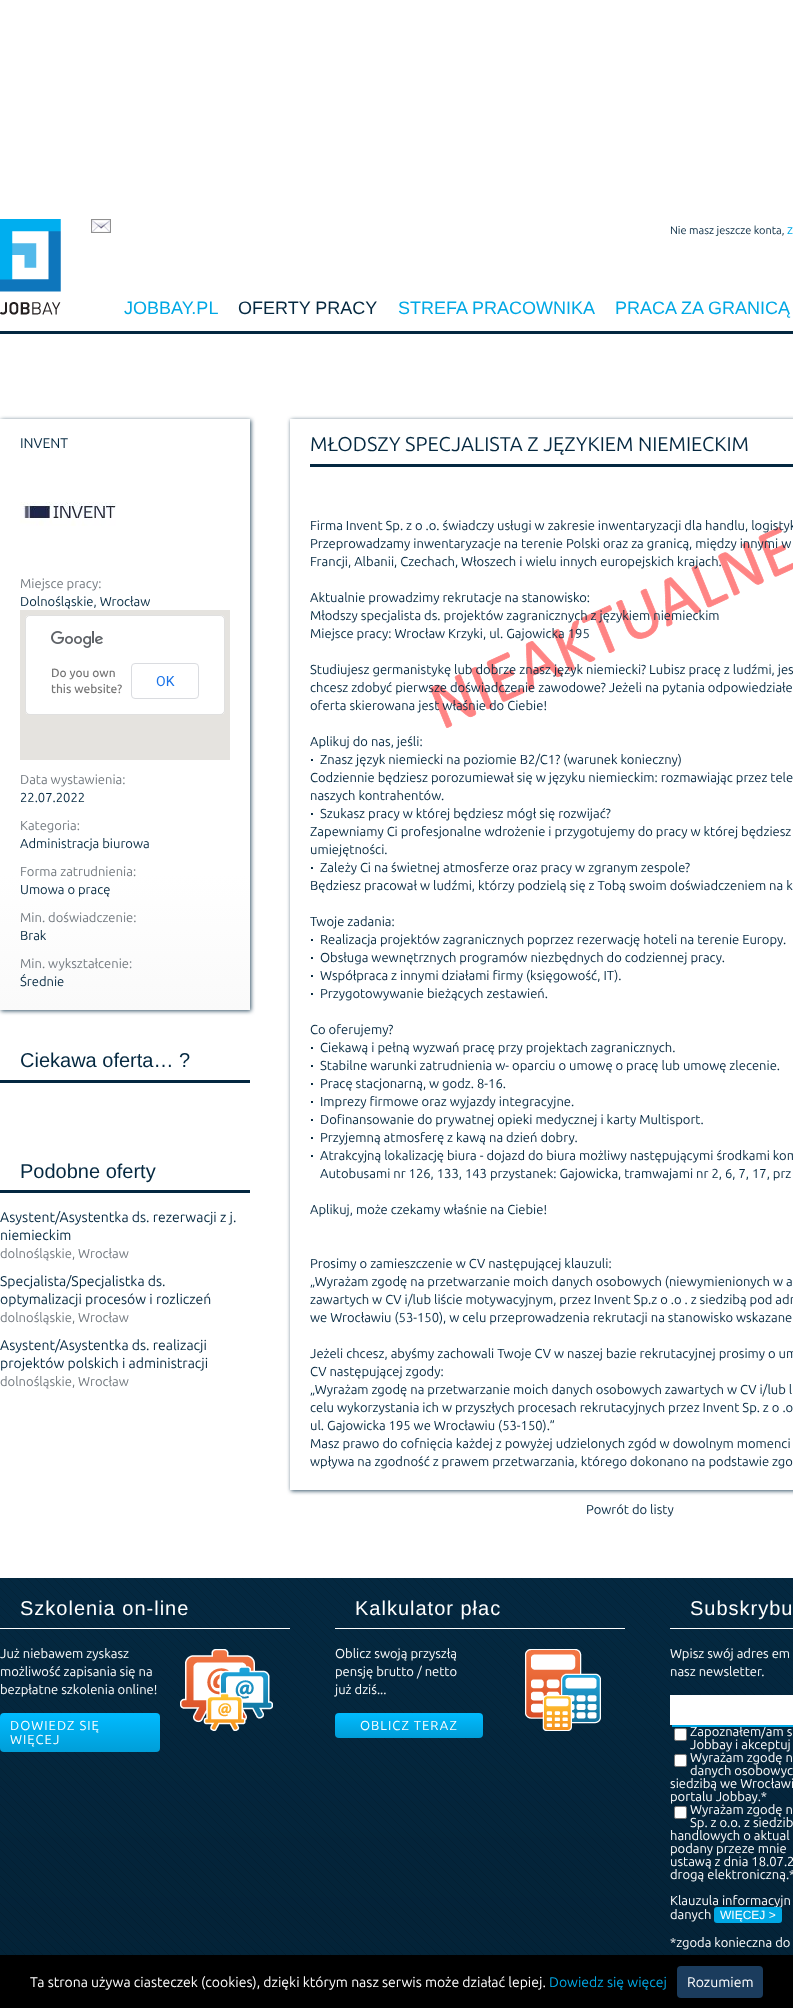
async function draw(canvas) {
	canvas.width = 793;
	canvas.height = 2008;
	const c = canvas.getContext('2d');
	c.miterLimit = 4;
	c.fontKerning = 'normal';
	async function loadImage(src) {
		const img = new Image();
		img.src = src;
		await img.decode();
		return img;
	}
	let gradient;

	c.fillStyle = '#fff';
	c.fillRect(0, 0, 793, 2008);
	c.drawImage(await loadImage('img1.png'), 0, 219, 61, 96);
	c.drawImage(await loadImage('img2.png'), 91, 219, 20, 14);
	c.font = '11px Ubuntu';
	c.fillStyle = '#042840';
	c.fillText('Nie masz jeszcze konta,', 670, 234);
	c.font = '13px Ubuntu';
	c.fillStyle = '#00a8e5';
	c.fillText('z', 787, 234);
	c.font = '18px Liberation Sans';
	c.fillText('JOBBAY.PL', 124, 314);
	c.fillStyle = '#042840';
	c.fillText('OFERTY PRACY', 238, 314);
	c.fillStyle = '#00a8e5';
	c.fillText('STREFA PRACOWNIKA', 398, 314);
	c.fillText('PRACA ZA GRANICĄ', 615, 314);
	c.fillStyle = '#042840';
	c.fillRect(0, 331, 793, 3);
	c.fillStyle = '#335266';
	c.filter = 'blur(2px)';
	c.beginPath();
	c.rect(1, 420, 250, 591);
	c.fill();
	c.filter = 'none';
	gradient = c.createLinearGradient(125, 419, 125, 1010);
	gradient.addColorStop(0.77, '#fff');
	gradient.addColorStop(1, '#fafafa');
	c.fillStyle = gradient;
	c.fillRect(0, 419, 250, 591);
	c.font = '14px Ubuntu';
	c.fillStyle = '#042840';
	c.fillText('INVENT', 20, 448);
	c.drawImage(await loadImage('img3.png'), 20, 501, 96, 25);
	c.font = '13px Ubuntu';
	c.fillStyle = '#737a80';
	c.fillText('Miejsce pracy:', 20, 588);
	c.fillStyle = '#042840';
	c.fillText('Dolnośląskie, Wrocław', 20, 606);
	c.fillStyle = '#e5e3df';
	c.fillRect(20, 610, 210, 150);
	c.fillStyle = '#fff';
	c.beginPath();
	c.roundRect(25, 615, 200, 100, 5);
	c.fill();
	c.beginPath();
	c.roundRect(25.5, 615.5, 199, 99, 4.5);
	c.strokeStyle = '#0000001f';
	c.stroke();
	c.drawImage(await loadImage('img4.png'), 51, 631, 52, 17);
	c.font = '500 12px Ubuntu';
	c.fillStyle = '#757575';
	c.fillText('Do you own', 51, 677);
	c.fillText('this website?', 51, 693);
	c.beginPath();
	c.roundRect(131.5, 663.5, 67, 35, 3.5);
	c.strokeStyle = '#dadce0';
	c.stroke();
	c.font = '14px Roboto';
	c.fillStyle = '#1a73e8';
	c.fillText('OK', 156, 686);
	c.font = '13px Ubuntu';
	c.fillStyle = '#737a80';
	c.fillText('Data wystawienia:', 20, 784);
	c.fillStyle = '#042840';
	c.fillText('22.07.2022', 20, 802);
	c.fillStyle = '#737a80';
	c.fillText('Kategoria:', 20, 830);
	c.fillStyle = '#042840';
	c.fillText('Administracja biurowa', 20, 848);
	c.fillStyle = '#737a80';
	c.fillText('Forma zatrudnienia:', 20, 876);
	c.fillStyle = '#042840';
	c.fillText('Umowa o pracę', 20, 894);
	c.fillStyle = '#737a80';
	c.fillText('Min. doświadczenie:', 20, 922);
	c.fillStyle = '#042840';
	c.fillText('Brak', 20, 940);
	c.fillStyle = '#737a80';
	c.fillText('Min. wykształcenie:', 20, 968);
	c.fillStyle = '#042840';
	c.fillText('Średnie', 20, 986);
	c.fillRect(0, 1080, 250, 3);
	c.font = '20px Liberation Sans';
	c.fillText('Ciekawa oferta… ?', 20, 1067);
	c.fillRect(0, 1190, 250, 3);
	c.fillText('Podobne oferty', 20, 1178);
	c.font = '14px Ubuntu';
	c.fillText('Asystent/Asystentka ds. rezerwacji z j.', 0, 1222);
	c.fillText('niemieckim', 0, 1240);
	c.font = '13px Ubuntu';
	c.fillStyle = '#737a80';
	c.fillText('dolnośląskie, Wrocław', 0, 1258);
	c.font = '14px Ubuntu';
	c.fillStyle = '#042840';
	c.fillText('Specjalista/Specjalistka ds.', 0, 1286);
	c.fillText('optymalizacji procesów i rozliczeń', 0, 1304);
	c.font = '13px Ubuntu';
	c.fillStyle = '#737a80';
	c.fillText('dolnośląskie, Wrocław', 0, 1322);
	c.font = '14px Ubuntu';
	c.fillStyle = '#042840';
	c.fillText('Asystent/Asystentka ds. realizacji', 0, 1350);
	c.fillText('projektów polskich i administracji', 0, 1368);
	c.font = '13px Ubuntu';
	c.fillStyle = '#737a80';
	c.fillText('dolnośląskie, Wrocław', 0, 1386);
	c.save();
	c.beginPath();
	c.moveTo(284, 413);
	c.lineTo(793, 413);
	c.lineTo(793, 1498);
	c.lineTo(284, 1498);
	c.closePath();
	c.moveTo(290, 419);
	c.lineTo(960, 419);
	c.lineTo(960, 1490);
	c.lineTo(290, 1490);
	c.closePath();
	c.clip('evenodd');
	c.fillStyle = '#335266';
	c.filter = 'blur(2px)';
	c.beginPath();
	c.rect(291, 420, 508, 1071);
	c.fill();
	c.filter = 'none';
	c.restore();
	c.drawImage(await loadImage('img5.png'), 430, 527, 363, 201);
	c.fillStyle = '#042840';
	c.fillRect(310, 464, 483, 3);
	c.font = '20px Ubuntu';
	c.fillText('MŁODSZY SPECJALISTA Z JĘZYKIEM NIEMIECKIM', 310, 451);
	c.font = '13px Ubuntu';
	for (const [text, x, y] of [
		['Firma Invent Sp. z o .o. świadczy usługi w zakresie inwentaryzacji dla handlu, logistyk', 310, 530],
		['Przeprowadzamy inwentaryzacje na terenie Polski oraz za granicą, między innymi w', 310, 548],
		['Francji, Albanii, Czechach, Włoszech i wielu innych europejskich krajach.', 310, 566],
		['Aktualnie prowadzimy rekrutacje na stanowisko:', 310, 602],
		['Młodszy specjalista ds. projektów zagranicznych z językiem niemieckim', 310, 620],
		['Miejsce pracy: Wrocław Krzyki, ul. Gajowicka 195', 310, 638],
		['Studiujesz germanistykę lub dobrze znasz język niemiecki? Lubisz pracę z ludźmi, jes', 310, 674],
		['chcesz zdobyć pierwsze doświadczenie zawodowe? Jeżeli na pytania odpowiedziałe', 310, 692],
		['oferta skierowana jest właśnie do Ciebie!', 310, 710],
		['Aplikuj do nas, jeśli:', 310, 746],
	]) {
		c.fillText(text, x, y);
	}
	c.drawImage(await loadImage('img6.png'), 311, 759, 2, 2);
	for (const [text, x, y] of [
		['Znasz język niemiecki na poziomie B2/C1? (warunek konieczny)', 320, 764],
		['Codziennie będziesz porozumiewał się w języku niemieckim: rozmawiając przez tele', 310, 782],
		['naszych kontrahentów.', 310, 800],
	]) {
		c.fillText(text, x, y);
	}
	c.drawImage(await loadImage('img6.png'), 311, 813, 2, 2);
	for (const [text, x, y] of [
		['Szukasz pracy w której będziesz mógł się rozwijać?', 320, 818],
		['Zapewniamy Ci profesjonalne wdrożenie i przygotujemy do pracy w której będziesz', 310, 836],
		['umiejętności.', 310, 854],
	]) {
		c.fillText(text, x, y);
	}
	c.drawImage(await loadImage('img6.png'), 311, 867, 2, 2);
	for (const [text, x, y] of [
		['Zależy Ci na świetnej atmosferze oraz pracy w zgranym zespole?', 320, 872],
		['Będziesz pracował w ludźmi, którzy podzielą się z Tobą swoim doświadczeniem na k', 310, 890],
		['Twoje zadania:', 310, 926],
	]) {
		c.fillText(text, x, y);
	}
	c.drawImage(await loadImage('img6.png'), 311, 939, 2, 2);
	c.fillText('Realizacja projektów zagranicznych poprzez rezerwację hoteli na terenie Europy.', 320, 944);
	c.drawImage(await loadImage('img6.png'), 311, 957, 2, 2);
	c.fillText('Obsługa wewnętrznych programów niezbędnych do codziennej pracy.', 320, 962);
	c.drawImage(await loadImage('img6.png'), 311, 975, 2, 2);
	c.fillText('Współpraca z innymi działami firmy (księgowość, IT).', 320, 980);
	c.drawImage(await loadImage('img6.png'), 311, 993, 2, 2);
	c.fillText('Przygotowywanie bieżących zestawień.', 320, 998);
	c.fillText('Co oferujemy?', 310, 1034);
	c.drawImage(await loadImage('img6.png'), 311, 1047, 2, 2);
	c.fillText('Ciekawą i pełną wyzwań pracę przy projektach zagranicznych.', 320, 1052);
	c.drawImage(await loadImage('img6.png'), 311, 1065, 2, 2);
	c.fillText('Stabilne warunki zatrudnienia w- oparciu o umowę o pracę lub umowę zlecenie.', 320, 1070);
	c.drawImage(await loadImage('img6.png'), 311, 1083, 2, 2);
	c.fillText('Pracę stacjonarną, w godz. 8-16.', 320, 1088);
	c.drawImage(await loadImage('img6.png'), 311, 1101, 2, 2);
	c.fillText('Imprezy firmowe oraz wyjazdy integracyjne.', 320, 1106);
	c.drawImage(await loadImage('img6.png'), 311, 1119, 2, 2);
	c.fillText('Dofinansowanie do prywatnej opieki medycznej i karty Multisport.', 320, 1124);
	c.drawImage(await loadImage('img6.png'), 311, 1137, 2, 2);
	c.fillText('Przyjemną atmosferę z kawą na dzień dobry.', 320, 1142);
	c.drawImage(await loadImage('img6.png'), 311, 1155, 2, 2);
	for (const [text, x, y] of [
		['Atrakcyjną lokalizację biura - dojazd do biura możliwy następującymi środkami kom', 320, 1160],
		['Autobusami nr 126, 133, 143 przystanek: Gajowicka, tramwajami nr 2, 6, 7, 17, prz', 320, 1178],
		['Aplikuj, może czekamy właśnie na Ciebie!', 310, 1214],
		['Prosimy o zamieszczenie w CV następującej klauzuli:', 310, 1268],
		['„Wyrażam zgodę na przetwarzanie moich danych osobowych (niewymienionych w a', 310, 1286],
		['zawartych w CV i/lub liście motywacyjnym, przez Invent Sp.z o .o . z siedzibą pod adr', 310, 1304],
		['we Wrocławiu (53-150), w celu przeprowadzenia rekrutacji na stanowisko wskazane', 310, 1322],
		['Jeżeli chcesz, abyśmy zachowali Twoje CV w naszej bazie rekrutacyjnej prosimy o um', 310, 1358],
		['CV następującej zgody:', 310, 1376],
		['„Wyrażam zgodę na przetwarzanie moich danych osobowych zawartych w CV i/lub l', 310, 1394],
		['celu wykorzystania ich w przyszłych procesach rekrutacyjnych przez Invent Sp. z o .o', 310, 1412],
		['ul. Gajowicka 195 we Wrocławiu (53-150).”', 310, 1430],
		['Masz prawo do cofnięcia każdej z powyżej udzielonych zgód w dowolnym momenci', 310, 1448],
		['wpływa na zgodność z prawem przetwarzania, którego dokonano na podstawie zgo', 310, 1466],
		['Powrót do listy', 586, 1514],
	]) {
		c.fillText(text, x, y);
	}
	c.drawImage(await loadImage('img7.png'), 0, 1578, 793, 377);
	c.fillStyle = '#fff';
	c.fillRect(0, 1628, 290, 1);
	c.letterSpacing = '1px';
	c.font = '20px Liberation Sans';
	c.fillText('Szkolenia on-line', 20, 1615);
	c.drawImage(await loadImage('img8.png'), 180, 1649, 93, 82);
	c.letterSpacing = '0px';
	c.font = '13px Ubuntu';
	for (const [text, x, y] of [
		['Już niebawem zyskasz', 0, 1658],
		['możliwość zapisania się na', 0, 1676],
		['bezpłatne szkolenia online!', 0, 1694],
	]) {
		c.fillText(text, x, y);
	}
	gradient = c.createLinearGradient(80, 1713, 80, 1752);
	gradient.addColorStop(0, '#0bf');
	gradient.addColorStop(1, '#009ed8');
	c.fillStyle = gradient;
	c.beginPath();
	c.roundRect(0, 1713, 160, 39, 4);
	c.fill();
	c.letterSpacing = '1px';
	c.fillStyle = '#fff';
	c.fillText('DOWIEDZ SIĘ', 10, 1730);
	c.fillText('WIĘCEJ', 10, 1744);
	c.fillRect(335, 1628, 290, 1);
	c.font = '20px Liberation Sans';
	c.fillText('Kalkulator płac', 355, 1615);
	c.drawImage(await loadImage('img9.png'), 525, 1649, 76, 82);
	c.letterSpacing = '0px';
	c.font = '13px Ubuntu';
	for (const [text, x, y] of [
		['Oblicz swoją przyszłą', 335, 1658],
		['pensję brutto / netto', 335, 1676],
		['już dziś...', 335, 1694],
	]) {
		c.fillText(text, x, y);
	}
	gradient = c.createLinearGradient(409, 1713, 409, 1738);
	gradient.addColorStop(0, '#0bf');
	gradient.addColorStop(1, '#009ed8');
	c.fillStyle = gradient;
	c.beginPath();
	c.roundRect(335, 1713, 148, 25, 4);
	c.fill();
	c.letterSpacing = '1px';
	c.fillStyle = '#fff';
	c.fillText('OBLICZ TERAZ', 360, 1730);
	c.fillRect(670, 1628, 123, 1);
	c.font = '20px Liberation Sans';
	c.fillText('Subskrybu', 690, 1615);
	c.letterSpacing = '0px';
	c.font = '13px Ubuntu';
	for (const [text, x, y] of [
		['Wpisz swój adres em', 670, 1658],
		['nasz newsletter.', 670, 1676],
		['Zapoznałem/am s', 690, 1736],
	]) {
		c.fillText(text, x, y);
	}
	c.fillStyle = '#00a8e5';
	c.beginPath();
	c.moveTo(672, 1725);
	c.lineTo(672, 1727);
	c.lineTo(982, 1727);
	c.lineTo(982, 1697);
	c.lineTo(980, 1697);
	c.lineTo(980, 1725);
	c.closePath();
	c.fill();
	c.fillStyle = '#fff';
	c.fillRect(670, 1695, 123, 30);
	c.beginPath();
	c.roundRect(674.5, 1728.5, 12, 12, 1.5);
	c.fill();
	c.strokeStyle = '#767676';
	c.stroke();
	c.fillText('Jobbay i akceptuj', 690, 1749);
	c.beginPath();
	c.roundRect(674.5, 1754.5, 12, 12, 1.5);
	c.fill();
	c.stroke();
	for (const [text, x, y] of [
		['Wyrażam zgodę n', 690, 1762],
		['danych osobowyc', 690, 1775],
		['siedzibą we Wrocławi', 670, 1788],
		['portalu Jobbay.*', 670, 1801],
	]) {
		c.fillText(text, x, y);
	}
	c.beginPath();
	c.roundRect(674.5, 1806.5, 12, 12, 1.5);
	c.fill();
	c.stroke();
	for (const [text, x, y] of [
		['Wyrażam zgodę n', 690, 1814],
		['Sp. z o.o. z siedzib', 690, 1827],
		['handlowych o aktual', 670, 1840],
		['podany przeze mnie', 670, 1853],
		['ustawą z dnia 18.07.2', 670, 1866],
		['drogą elektroniczną.*', 670, 1879],
		['Klauzula informacyjn', 670, 1905],
		['danych', 670, 1919],
	]) {
		c.fillText(text, x, y);
	}
	c.fillStyle = '#00a8e5';
	c.beginPath();
	c.roundRect(714, 1907, 68, 16, 3);
	c.fill();
	c.font = '12px Liberation Sans';
	c.fillStyle = '#fff';
	c.fillText('WIĘCEJ >', 720, 1919);
	c.font = '13px Ubuntu';
	c.fillText('*zgoda konieczna do', 670, 1947);
	c.fillStyle = '#000';
	c.fillRect(0, 1955, 793, 53);
	c.font = '14px Ubuntu';
	c.fillStyle = '#fff';
	c.fillText('Ta strona używa ciasteczek (cookies), dzięki którym nasz serwis może działać lepiej.', 30, 1987);
	c.fillStyle = '#00a8e5';
	c.fillText('Dowiedz się więcej', 549, 1987);
	c.fillStyle = '#1b3c5d';
	c.beginPath();
	c.roundRect(677, 1966, 86, 32, 4);
	c.fill();
	c.fillStyle = '#fff';
	c.fillText('Rozumiem', 687, 1987);
}

draw(document.querySelector('canvas'));
